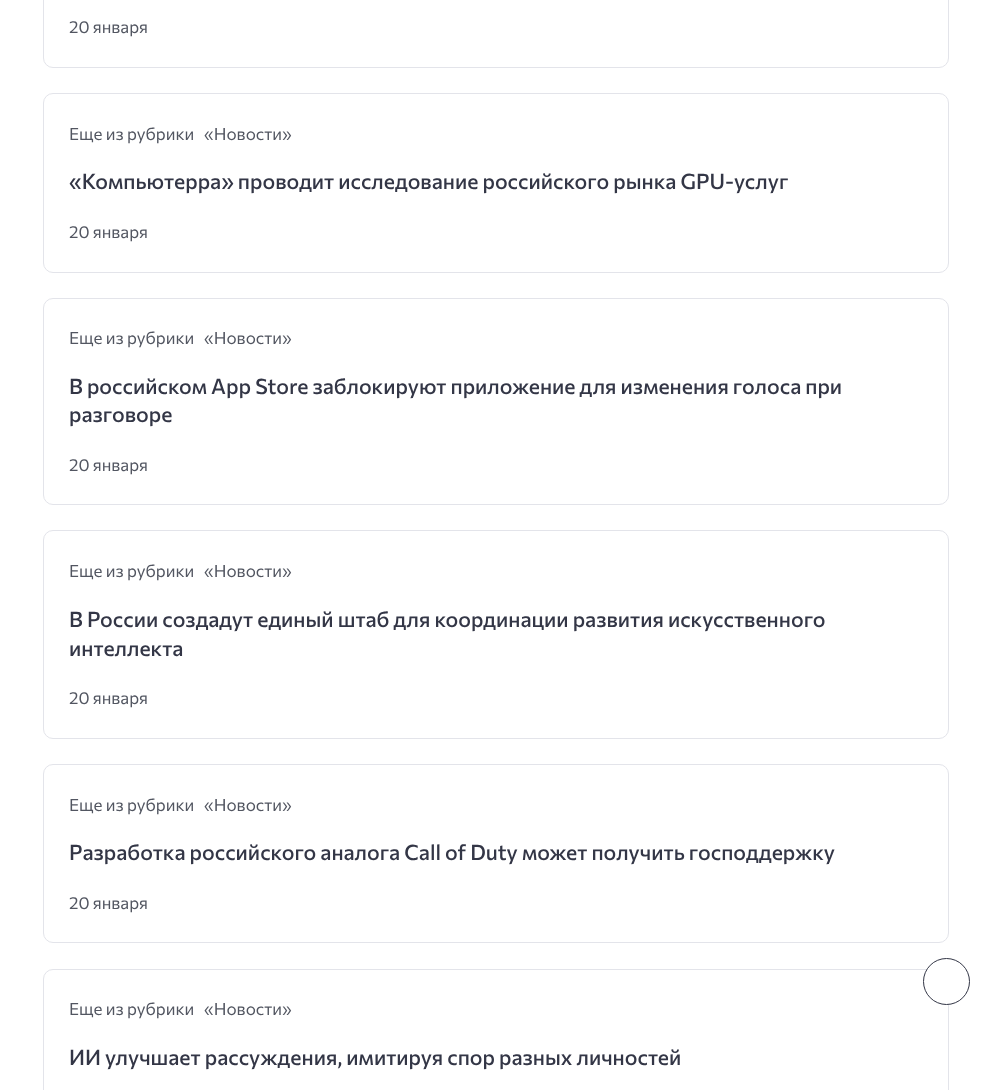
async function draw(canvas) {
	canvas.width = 991;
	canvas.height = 1090;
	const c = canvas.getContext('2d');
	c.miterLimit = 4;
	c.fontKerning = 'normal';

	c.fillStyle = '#fff';
	c.fillRect(0, 0, 991, 1090);
	c.beginPath();
	c.roundRect(43.5, -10.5, 905, 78, 9.5);
	c.strokeStyle = '#e3e4ea';
	c.stroke();
	c.font = '17px Commissioner';
	c.fillStyle = '#525661';
	c.fillText('20 января', 69, 33);
	c.beginPath();
	c.roundRect(43.5, 93.5, 905, 179, 9.5);
	c.stroke();
	c.fillText('Еще из рубрики   «Новости»', 69, 140);
	c.font = '500 21.25px Commissioner';
	c.fillStyle = '#333646';
	c.fillText('«Компьютерра» проводит исследование российского рынка GPU-услуг', 69, 189);
	c.font = '17px Commissioner';
	c.fillStyle = '#525661';
	c.fillText('20 января', 69, 238);
	c.beginPath();
	c.roundRect(43.5, 298.5, 905, 206, 9.5);
	c.stroke();
	c.fillText('Еще из рубрики   «Новости»', 69, 344);
	c.font = '500 21.25px Commissioner';
	c.fillStyle = '#333646';
	c.fillText('В российском App Store заблокируют приложение для изменения голоса при', 69, 394);
	c.fillText('разговоре', 69, 422);
	c.font = '17px Commissioner';
	c.fillStyle = '#525661';
	c.fillText('20 января', 69, 471);
	c.beginPath();
	c.roundRect(43.5, 530.5, 905, 208, 9.5);
	c.stroke();
	c.fillText('Еще из рубрики   «Новости»', 69, 577);
	c.font = '500 21.25px Commissioner';
	c.fillStyle = '#333646';
	c.fillText('В России создадут единый штаб для координации развития искусственного', 69, 627);
	c.fillText('интеллекта', 69, 656);
	c.font = '17px Commissioner';
	c.fillStyle = '#525661';
	c.fillText('20 января', 69, 704);
	c.beginPath();
	c.roundRect(43.5, 764.5, 905, 178, 9.5);
	c.stroke();
	c.fillText('Еще из рубрики   «Новости»', 69, 811);
	c.font = '500 21.25px Commissioner';
	c.fillStyle = '#333646';
	c.fillText('Разработка российского аналога Call of Duty может получить господдержку', 69, 860);
	c.font = '17px Commissioner';
	c.fillStyle = '#525661';
	c.fillText('20 января', 69, 909);
	c.beginPath();
	c.roundRect(43.5, 969.5, 905, 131, 9.5);
	c.stroke();
	c.fillText('Еще из рубрики   «Новости»', 69, 1015);
	c.font = '500 21.25px Commissioner';
	c.fillStyle = '#333646';
	c.fillText('ИИ улучшает рассуждения, имитируя спор разных личностей', 69, 1065);
	c.fillStyle = '#fff';
	c.beginPath();
	c.arc(946.5, 981.5, 23, 0, 2 * Math.PI);
	c.fill();
	c.strokeStyle = '#333646';
	c.stroke();
}

draw(document.querySelector('canvas'));
